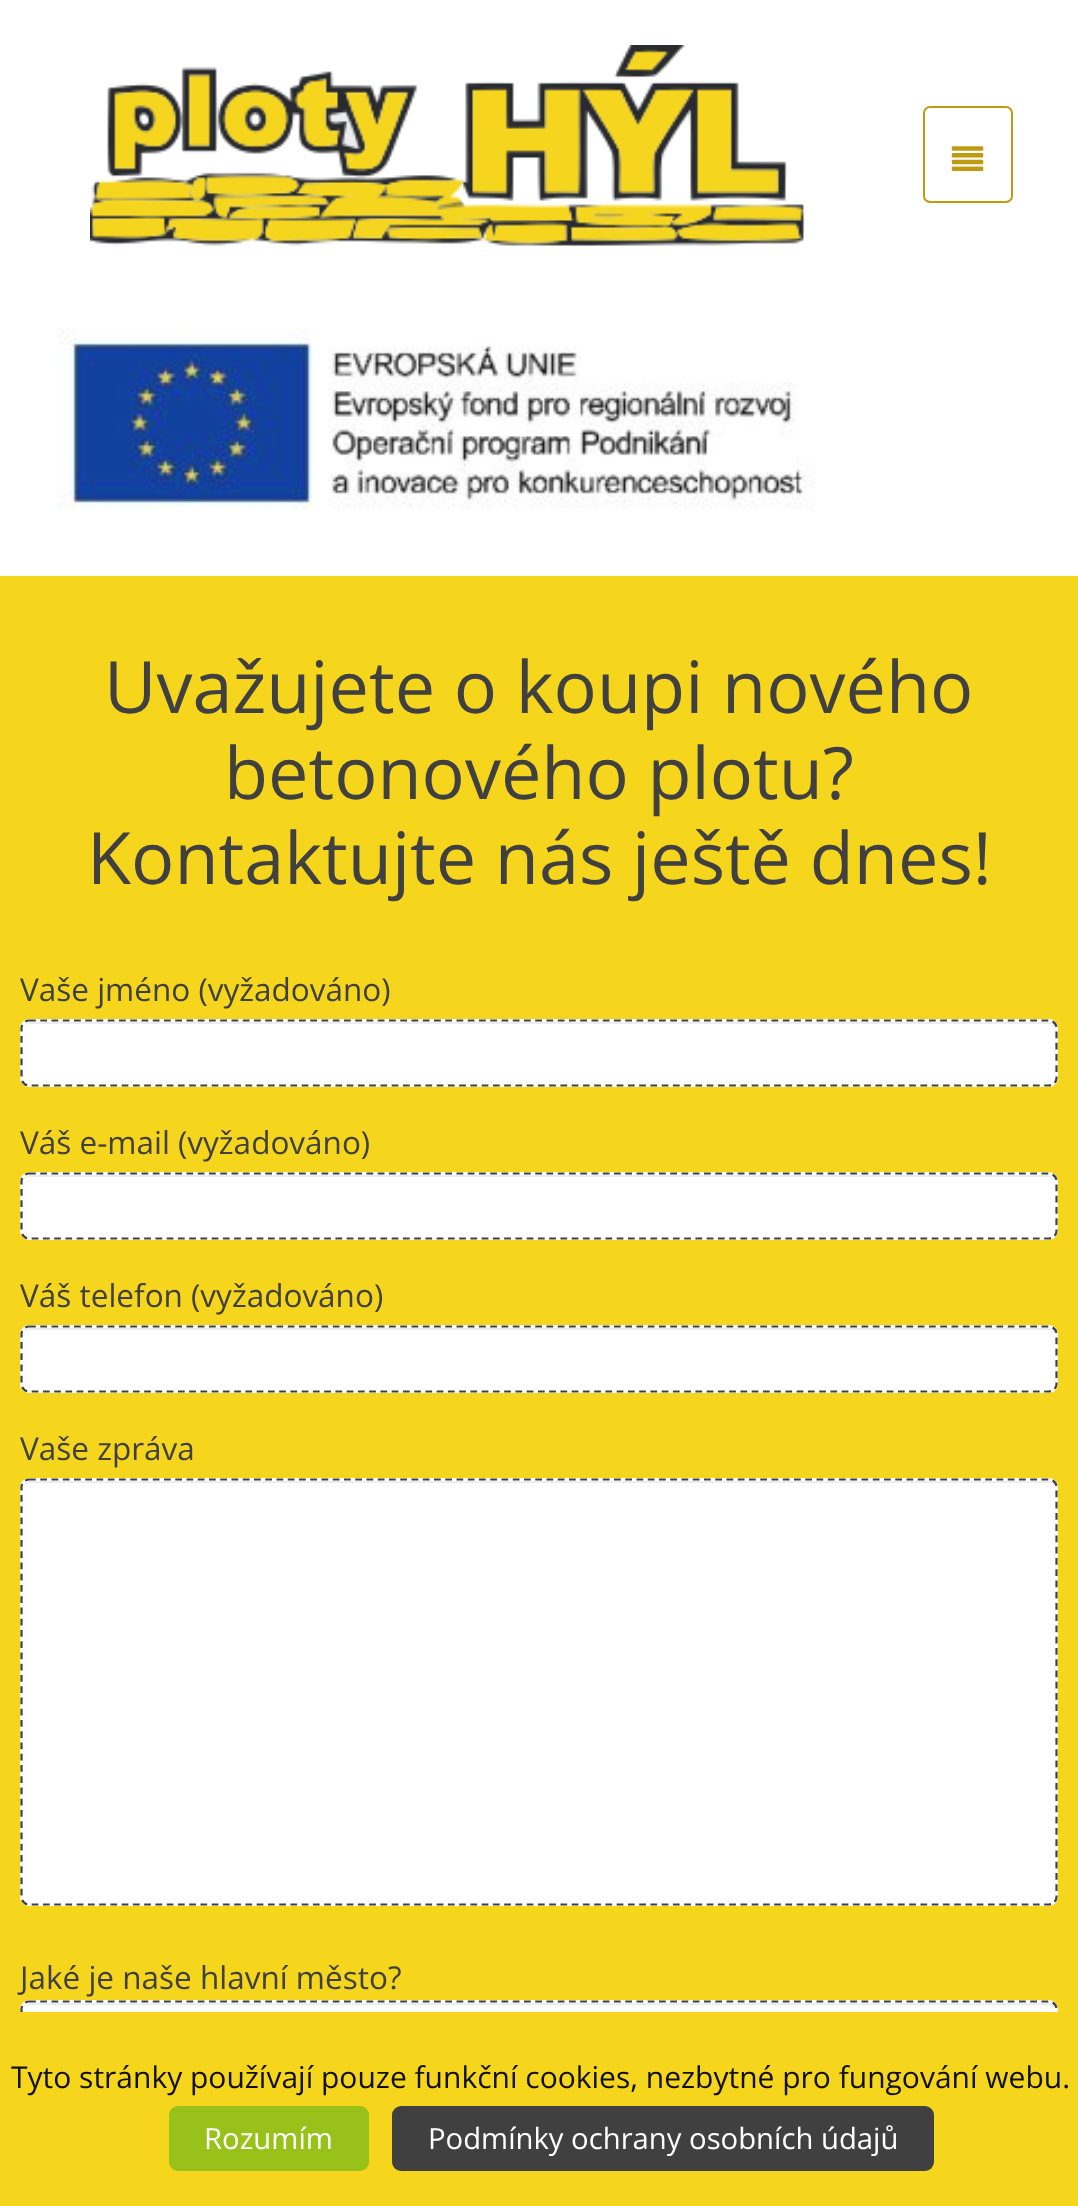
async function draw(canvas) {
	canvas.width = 1078;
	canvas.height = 2206;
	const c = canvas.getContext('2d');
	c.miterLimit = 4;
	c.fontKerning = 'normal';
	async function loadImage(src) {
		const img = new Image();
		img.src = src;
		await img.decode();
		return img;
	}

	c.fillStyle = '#fff';
	c.fillRect(0, 0, 1078, 2206);
	c.drawImage(await loadImage('img1.png'), 90, 45, 715, 202);
	c.beginPath();
	c.roundRect(924, 107, 88, 95, 6);
	c.strokeStyle = '#c09a11';
	c.lineWidth = 2;
	c.stroke();
	c.drawImage(await loadImage('img2.png'), 951, 146, 33, 25);
	c.drawImage(await loadImage('img3.png'), 58, 328, 757, 183);
	c.fillStyle = '#f6d51d';
	c.fillRect(0, 576, 1078, 1436);
	c.font = '72px Open Sans';
	c.fillStyle = '#404040';
	for (const [text, x, y] of [
		['Uvažujete o koupi nového', 104, 713],
		['betonového plotu?', 224, 799],
		['Kontaktujte nás ještě dnes!', 87, 884],
	]) {
		c.fillText(text, x, y);
	}
	c.font = '31.5px Open Sans';
	c.fillText('Vaše jméno (vyžadováno)', 20, 1001);
	c.fillStyle = '#fff';
	c.beginPath();
	c.roundRect(20, 1019, 1038, 68, 9);
	c.fill();
	c.fillStyle = '#ededed';
	c.beginPath();
	c.moveTo(29, 1024);
	c.lineTo(1048, 1024);
	c.bezierCurveTo(1052, 1024, 1055, 1027, 1055, 1030);
	c.lineTo(1055, 1029);
	c.bezierCurveTo(1055, 1025, 1052, 1022, 1048, 1022);
	c.lineTo(30, 1022);
	c.bezierCurveTo(27, 1022, 24, 1024, 23, 1027);
	c.bezierCurveTo(25, 1025, 27, 1024, 29, 1024);
	c.closePath();
	c.fill();
	c.beginPath();
	c.moveTo(29, 1020.5);
	c.lineTo(1048.5, 1020.5);
	c.bezierCurveTo(1053, 1020.5, 1056.5, 1024, 1056.5, 1028);
	c.lineTo(1056.5, 1078);
	c.bezierCurveTo(1056.5, 1082, 1053, 1085.5, 1048.5, 1085.5);
	c.lineTo(29, 1085.5);
	c.bezierCurveTo(25, 1085.5, 21.5, 1082, 21.5, 1078);
	c.lineTo(21.5, 1028);
	c.bezierCurveTo(21.5, 1024, 25, 1020.5, 29, 1020.5);
	c.closePath();
	c.strokeStyle = '#404040';
	c.lineWidth = 2.2;
	c.setLineDash([6.75, 4.5]);
	c.stroke();
	c.fillStyle = '#404040';
	c.fillText('Váš e-mail (vyžadováno)', 20, 1154);
	c.fillStyle = '#fff';
	c.beginPath();
	c.roundRect(20, 1172, 1038, 68, 9);
	c.fill();
	c.fillStyle = '#ededed';
	c.beginPath();
	c.moveTo(29, 1177);
	c.lineTo(1048, 1177);
	c.bezierCurveTo(1052, 1177, 1055, 1180, 1055, 1184);
	c.lineTo(1055, 1182);
	c.bezierCurveTo(1055, 1178, 1052, 1175, 1048, 1175);
	c.lineTo(30, 1175);
	c.bezierCurveTo(27, 1175, 24, 1177, 23, 1180);
	c.bezierCurveTo(25, 1178, 27, 1177, 29, 1177);
	c.closePath();
	c.fill();
	c.beginPath();
	c.moveTo(29, 1173.5);
	c.lineTo(1048.5, 1173.5);
	c.bezierCurveTo(1053, 1173.5, 1056.5, 1177, 1056.5, 1181);
	c.lineTo(1056.5, 1231);
	c.bezierCurveTo(1056.5, 1235, 1053, 1238.5, 1048.5, 1238.5);
	c.lineTo(29, 1238.5);
	c.bezierCurveTo(25, 1238.5, 21.5, 1235, 21.5, 1231);
	c.lineTo(21.5, 1181);
	c.bezierCurveTo(21.5, 1177, 25, 1173.5, 29, 1173.5);
	c.closePath();
	c.stroke();
	c.fillStyle = '#404040';
	c.fillText('Váš telefon (vyžadováno)', 20, 1307);
	c.fillStyle = '#fff';
	c.beginPath();
	c.roundRect(20, 1325, 1038, 68, 9);
	c.fill();
	c.fillStyle = '#ededed';
	c.beginPath();
	c.moveTo(29, 1330);
	c.lineTo(1048, 1330);
	c.bezierCurveTo(1052, 1330, 1055, 1333, 1055, 1336);
	c.lineTo(1055, 1335);
	c.bezierCurveTo(1055, 1331, 1052, 1328, 1048, 1328);
	c.lineTo(30, 1328);
	c.bezierCurveTo(27, 1328, 24, 1330, 23, 1333);
	c.bezierCurveTo(25, 1331, 27, 1330, 29, 1330);
	c.closePath();
	c.fill();
	c.beginPath();
	c.moveTo(29, 1326.5);
	c.lineTo(1048.5, 1326.5);
	c.bezierCurveTo(1053, 1326.5, 1056.5, 1330, 1056.5, 1334);
	c.lineTo(1056.5, 1384);
	c.bezierCurveTo(1056.5, 1388, 1053, 1391.5, 1048.5, 1391.5);
	c.lineTo(29, 1391.5);
	c.bezierCurveTo(25, 1391.5, 21.5, 1388, 21.5, 1384);
	c.lineTo(21.5, 1334);
	c.bezierCurveTo(21.5, 1330, 25, 1326.5, 29, 1326.5);
	c.closePath();
	c.stroke();
	c.fillStyle = '#404040';
	c.fillText('Vaše zpráva', 20, 1460);
	c.fillStyle = '#fff';
	c.beginPath();
	c.roundRect(20, 1478, 1038, 428, 9);
	c.fill();
	c.fillStyle = '#ededed';
	c.beginPath();
	c.moveTo(29, 1483);
	c.lineTo(1048, 1483);
	c.bezierCurveTo(1052, 1483, 1055, 1486, 1055, 1490);
	c.lineTo(1055, 1488);
	c.bezierCurveTo(1055, 1484, 1052, 1481, 1048, 1481);
	c.lineTo(30, 1481);
	c.bezierCurveTo(27, 1481, 24, 1483, 23, 1486);
	c.bezierCurveTo(25, 1484, 27, 1483, 29, 1483);
	c.closePath();
	c.fill();
	c.beginPath();
	c.moveTo(29, 1479.5);
	c.lineTo(1048.5, 1479.5);
	c.bezierCurveTo(1053, 1479.5, 1056.5, 1483, 1056.5, 1487);
	c.lineTo(1056.5, 1897);
	c.bezierCurveTo(1056.5, 1901, 1053, 1904.5, 1048.5, 1904.5);
	c.lineTo(29, 1904.5);
	c.bezierCurveTo(25, 1904.5, 21.5, 1901, 21.5, 1897);
	c.lineTo(21.5, 1487);
	c.bezierCurveTo(21.5, 1483, 25, 1479.5, 29, 1479.5);
	c.closePath();
	c.stroke();
	c.fillStyle = '#404040';
	c.fillText('Jaké je naše hlavní město?', 20, 1989);
	c.fillStyle = '#fff';
	c.beginPath();
	c.roundRect(20, 2000, 1038, 68, 9);
	c.fill();
	c.fillStyle = '#ededed';
	c.beginPath();
	c.moveTo(29, 2005);
	c.lineTo(1048, 2005);
	c.bezierCurveTo(1052, 2005, 1055, 2008, 1055, 2012);
	c.lineTo(1055, 2010);
	c.bezierCurveTo(1055, 2006, 1052, 2003, 1048, 2003);
	c.lineTo(30, 2003);
	c.bezierCurveTo(27, 2003, 24, 2005, 23, 2008);
	c.bezierCurveTo(25, 2006, 27, 2005, 29, 2005);
	c.closePath();
	c.fill();
	c.beginPath();
	c.moveTo(29, 2001.5);
	c.lineTo(1048.5, 2001.5);
	c.bezierCurveTo(1053, 2001.5, 1056.5, 2005, 1056.5, 2009);
	c.lineTo(1056.5, 2059);
	c.bezierCurveTo(1056.5, 2063, 1053, 2066.5, 1048.5, 2066.5);
	c.lineTo(29, 2066.5);
	c.bezierCurveTo(25, 2066.5, 21.5, 2063, 21.5, 2059);
	c.lineTo(21.5, 2009);
	c.bezierCurveTo(21.5, 2005, 25, 2001.5, 29, 2001.5);
	c.closePath();
	c.stroke();
	c.fillStyle = '#f6d61d';
	c.fillRect(0, 2012, 1078, 194);
	c.font = '30px Open Sans';
	c.fillStyle = '#101010';
	c.fillText('Tyto stránky používají pouze funkční cookies, nezbytné pro fungování webu.', 11, 2088);
	c.fillStyle = '#98c119';
	c.beginPath();
	c.roundRect(169, 2106, 200, 65, 9);
	c.fill();
	c.font = '29.25px Open Sans';
	c.fillStyle = '#fff';
	c.fillText('Rozumím', 204, 2149);
	c.fillStyle = '#404040';
	c.beginPath();
	c.roundRect(392, 2106, 542, 65, 9);
	c.fill();
	c.fillStyle = '#fff';
	c.fillText('Podmínky ochrany osobních údajů', 428, 2149);
}

draw(document.querySelector('canvas'));
